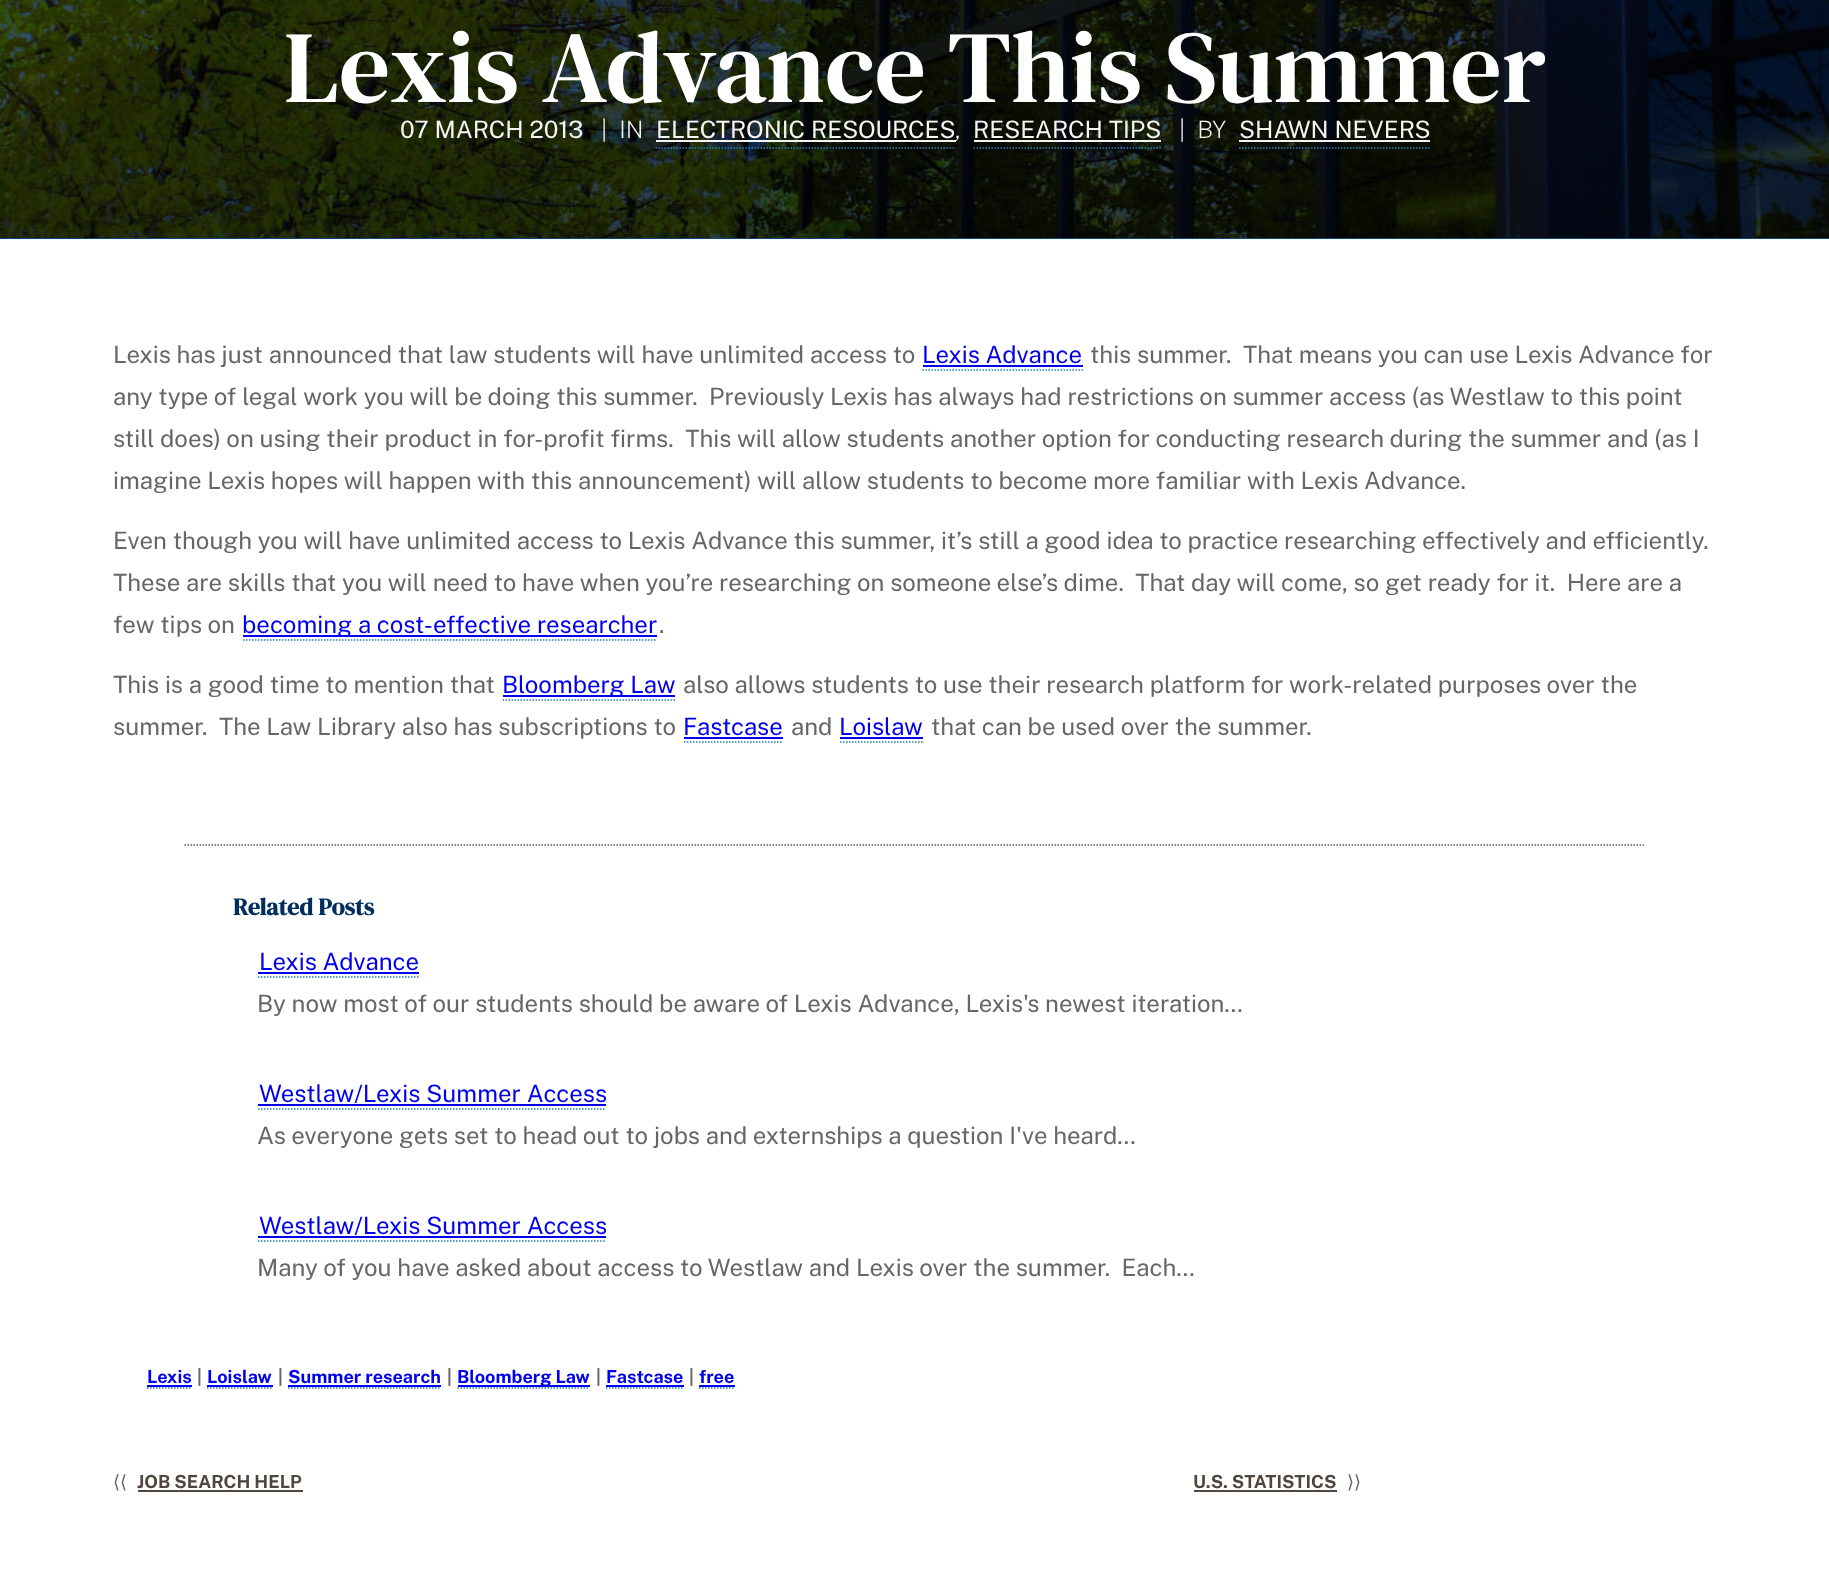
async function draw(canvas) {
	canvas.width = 1829;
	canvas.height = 1572;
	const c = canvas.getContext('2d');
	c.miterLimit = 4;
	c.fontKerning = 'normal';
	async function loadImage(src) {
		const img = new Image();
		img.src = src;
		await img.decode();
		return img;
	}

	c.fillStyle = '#0c4979';
	c.fillRect(0, 0, 1829, 1572);
	c.drawImage(await loadImage('img1.png'), 0, 0, 1829, 238);
	c.font = '102px DM Serif Text';
	c.fillStyle = '#fff';
	c.fillText('Lexis Advance This Summer', 284, 102);
	c.font = '24px Public Sans';
	c.fillStyle = '#f7f5f1';
	c.fillText('07 MARCH 2013', 400, 138);
	c.font = '200 24px Public Sans';
	c.fillText('|  IN', 601, 138);
	c.font = '24px Public Sans';
	c.fillText('ELECTRONIC RESOURCES', 656, 138);
	c.font = '200 24px Public Sans';
	c.fillText(',', 955, 138);
	c.beginPath();
	c.moveTo(655.5, 148);
	c.lineTo(955.5, 148);
	c.strokeStyle = '#277fb2';
	c.lineWidth = 1.5;
	c.setLineDash([1.5, 1.5]);
	c.stroke();
	c.fillRect(656, 140, 300, 2);
	c.beginPath();
	c.moveTo(973.5, 148);
	c.lineTo(1161, 148);
	c.stroke();
	c.fillRect(974, 140, 187, 2);
	c.font = '24px Public Sans';
	c.fillText('RESEARCH TIPS', 973, 138);
	c.font = '200 24px Public Sans';
	c.fillText('|  BY', 1179, 138);
	c.font = '24px Public Sans';
	c.fillText('SHAWN NEVERS', 1239, 138);
	c.beginPath();
	c.moveTo(1239, 148);
	c.lineTo(1429.5, 148);
	c.stroke();
	c.fillRect(1239, 140, 191, 2);
	c.fillStyle = '#fff';
	c.fillRect(0, 239, 1829, 1333);
	c.fillStyle = '#666';
	c.fillText('Lexis has just announced that law students will have unlimited access to', 113, 363);
	c.fillStyle = '#00e';
	c.fillText('Lexis Advance', 922, 363);
	c.beginPath();
	c.moveTo(922.5, 370);
	c.lineTo(1083, 370);
	c.stroke();
	c.fillRect(923, 365, 160, 2);
	c.fillStyle = '#666';
	for (const [text, x, y] of [
		['this summer.  That means you can use Lexis Advance for', 1090, 363],
		['any type of legal work you will be doing this summer.  Previously Lexis has always had restrictions on summer access (as Westlaw to this point', 113, 405],
		['still does) on using their product in for-profit firms.  This will allow students another option for conducting research during the summer and (as I', 113, 447],
		['imagine Lexis hopes will happen with this announcement) will allow students to become more familiar with Lexis Advance.', 113, 489],
		['Even though you will have unlimited access to Lexis Advance this summer, it’s still a good idea to practice researching effectively and efficiently.', 113, 549],
		['These are skills that you will need to have when you’re researching on someone else’s dime.  That day will come, so get ready for it.  Here are a', 113, 591],
		['few tips on', 113, 633],
	]) {
		c.fillText(text, x, y);
	}
	c.fillStyle = '#00e';
	c.fillRect(243, 635, 414, 2);
	c.fillText('becoming a cost-effective researcher', 242, 633);
	c.beginPath();
	c.moveTo(243, 640);
	c.lineTo(657, 640);
	c.stroke();
	c.fillStyle = '#666';
	c.fillText('.', 659, 633);
	c.fillText('This is a good time to mention that', 113, 693);
	c.fillStyle = '#00e';
	c.fillRect(503, 695, 172, 2);
	c.fillText('Bloomberg Law', 502, 693);
	c.beginPath();
	c.moveTo(502.5, 700);
	c.lineTo(675, 700);
	c.stroke();
	c.fillStyle = '#666';
	c.fillText('also allows students to use their research platform for work-related purposes over the', 683, 693);
	c.fillText('summer.  The Law Library also has subscriptions to', 113, 735);
	c.fillStyle = '#00e';
	c.fillText('Fastcase', 683, 735);
	c.beginPath();
	c.moveTo(684, 742);
	c.lineTo(783, 742);
	c.stroke();
	c.fillRect(684, 737, 99, 2);
	c.fillStyle = '#666';
	c.fillText('and', 791, 735);
	c.fillStyle = '#00e';
	c.fillText('Loislaw', 839, 735);
	c.beginPath();
	c.moveTo(840, 742);
	c.lineTo(922.5, 742);
	c.stroke();
	c.fillRect(840, 737, 83, 2);
	c.fillStyle = '#666';
	c.fillText('that can be used over the summer.', 931, 735);
	c.beginPath();
	c.moveTo(184.5, 845);
	c.lineTo(1645.5, 845);
	c.strokeStyle = '#63574b';
	c.stroke();
	c.font = 'bold 24px DM Serif Display';
	c.fillStyle = '#002e5d';
	c.fillText('Related Posts', 233, 915);
	c.font = '24px Public Sans';
	c.fillStyle = '#00e';
	c.fillText('Lexis Advance', 259, 970);
	c.beginPath();
	c.moveTo(258, 977);
	c.lineTo(418.5, 977);
	c.strokeStyle = '#277fb2';
	c.stroke();
	c.fillRect(258, 972, 161, 2);
	c.fillStyle = '#666';
	c.fillText('By now most of our students should be aware of Lexis Advance, Lexis\'s newest iteration…', 257, 1012);
	c.fillStyle = '#00e';
	c.fillText('Westlaw/Lexis Summer Access', 259, 1102);
	c.beginPath();
	c.moveTo(258, 1109);
	c.lineTo(606, 1109);
	c.stroke();
	c.fillRect(258, 1104, 348, 2);
	c.fillStyle = '#666';
	c.fillText('As everyone gets set to head out to jobs and externships a question I\'ve heard…', 257, 1144);
	c.fillStyle = '#00e';
	c.fillText('Westlaw/Lexis Summer Access', 259, 1234);
	c.beginPath();
	c.moveTo(258, 1241);
	c.lineTo(606, 1241);
	c.stroke();
	c.fillRect(258, 1236, 348, 2);
	c.fillStyle = '#666';
	c.fillText('Many of you have asked about access to Westlaw and Lexis over the summer.  Each…', 257, 1276);
	c.font = 'bold 18px Public Sans';
	c.fillStyle = '#00e';
	c.fillText('Lexis', 147, 1383);
	c.beginPath();
	c.moveTo(147, 1388);
	c.lineTo(192, 1388);
	c.stroke();
	c.fillRect(147, 1385, 45, 2);
	c.fillStyle = '#666';
	c.fillText('|', 197, 1383);
	c.fillStyle = '#00e';
	c.fillText('Loislaw', 207, 1383);
	c.beginPath();
	c.moveTo(207, 1388);
	c.lineTo(273, 1388);
	c.stroke();
	c.fillRect(207, 1385, 66, 2);
	c.fillStyle = '#666';
	c.fillText('|', 278, 1383);
	c.fillStyle = '#00e';
	c.fillText('Summer research', 288, 1383);
	c.beginPath();
	c.moveTo(288, 1388);
	c.lineTo(441, 1388);
	c.stroke();
	c.fillRect(288, 1385, 153, 2);
	c.fillStyle = '#666';
	c.fillText('|', 447, 1383);
	c.fillStyle = '#00e';
	c.fillRect(458, 1385, 132, 2);
	c.fillText('Bloomberg Law', 457, 1383);
	c.beginPath();
	c.moveTo(457.5, 1388);
	c.lineTo(589.5, 1388);
	c.stroke();
	c.fillStyle = '#666';
	c.fillText('|', 596, 1383);
	c.fillStyle = '#00e';
	c.fillText('Fastcase', 606, 1383);
	c.beginPath();
	c.moveTo(606, 1388);
	c.lineTo(684, 1388);
	c.stroke();
	c.fillRect(606, 1385, 78, 2);
	c.fillStyle = '#666';
	c.fillText('|', 689, 1383);
	c.fillStyle = '#00e';
	c.fillText('free', 699, 1383);
	c.beginPath();
	c.moveTo(699, 1388);
	c.lineTo(735, 1388);
	c.stroke();
	c.fillRect(699, 1385, 36, 2);
	c.font = '18px DejaVu Sans';
	c.fillStyle = '#666';
	c.fillText('⟨⟨', 113, 1488);
	c.font = 'bold 18px Public Sans';
	c.fillStyle = '#4f453c';
	c.fillText('JOB SEARCH HELP', 137, 1488);
	c.fillRect(138, 1490, 165, 2);
	c.fillText('U.S. STATISTICS', 1193, 1488);
	c.fillRect(1194, 1490, 143, 2);
	c.font = '18px DejaVu Sans';
	c.fillStyle = '#666';
	c.fillText('⟩⟩', 1347, 1488);
}

draw(document.querySelector('canvas'));
